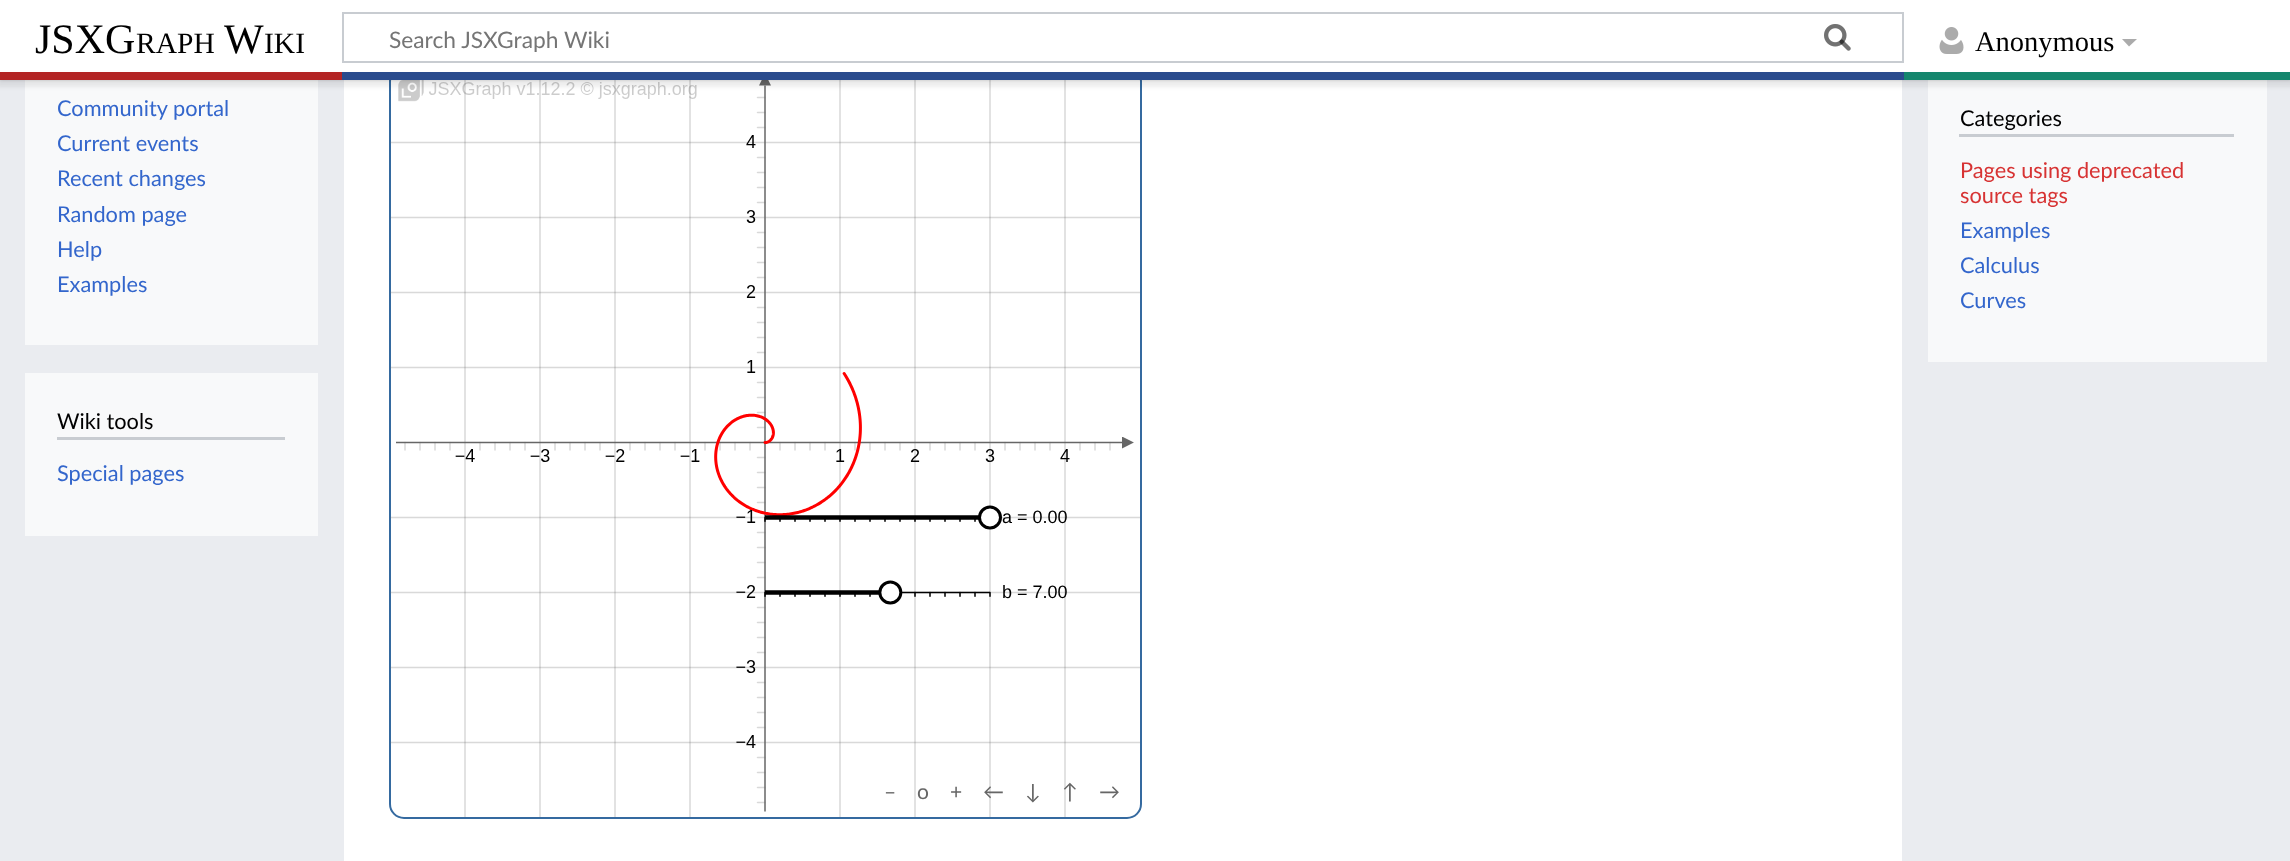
async function draw(canvas) {
	canvas.width = 2290;
	canvas.height = 861;
	const c = canvas.getContext('2d');
	c.miterLimit = 4;
	c.fontKerning = 'normal';
	async function loadImage(src) {
		const img = new Image();
		img.src = src;
		await img.decode();
		return img;
	}

	c.fillStyle = '#eaecf0';
	c.fillRect(0, 0, 2290, 861);
	for (const [x, y, w, h, color] of [
		[25, 80, 293, 265, '#f8f9fa'],
		[1928, 80, 339, 282, '#f8f9fa'],
		[344, 80, 1558, 781, '#fff'],
	]) {
		c.fillStyle = color;
		c.fillRect(x, y, w, h);
	}
	c.beginPath();
	c.roundRect(390, 67, 751, 751, 14);
	c.strokeStyle = '#356aa0';
	c.lineWidth = 2;
	c.stroke();
	c.drawImage(await loadImage('img4.png'), 390, 80, 750, 737);
	c.fillStyle = '#00000033';
	c.filter = 'blur(1.5px)';
	c.beginPath();
	c.rect(0, 72, 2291, 8);
	c.fill();
	c.filter = 'none';
	c.fillStyle = '#00000012';
	c.filter = 'blur(2px)';
	c.beginPath();
	c.rect(-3, 74, 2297, 13);
	c.fill();
	c.filter = 'none';
	c.fillStyle = '#fff';
	c.fillRect(0, 0, 2290, 72);
	c.font = '42px Liberation Serif';
	c.fillStyle = '#000';
	c.fillText('JSXG', 35, 53);
	c.font = '29.5px Liberation Serif';
	c.fillText('RAPH', 136, 53);
	c.font = '42px Liberation Serif';
	c.fillText('W', 224, 53);
	c.font = '29.5px Liberation Serif';
	c.fillText('IKI', 264, 53);
	c.strokeStyle = '#c8ccd1';
	c.strokeRect(343, 13, 1560, 49);
	c.drawImage(await loadImage('img1.png'), 1824, 24, 27, 27);
	c.font = '22.75px Lato';
	c.fillStyle = '#757575';
	c.fillText('Search JSXGraph Wiki', 389, 48);
	c.drawImage(await loadImage('img2.png'), 1824, 24, 27, 27);
	c.drawImage(await loadImage('img3.png'), 1939, 27, 25, 27);
	c.font = '28.5px Liberation Serif';
	c.fillStyle = '#000';
	c.fillText('Anonymous', 1975, 51);
	c.fillStyle = '#ababab';
	c.beginPath();
	c.moveTo(2137, 39);
	c.lineTo(2129, 46.5);
	c.lineTo(2122, 39);
	c.closePath();
	c.fill();
	for (const [x, y, w, h, color] of [
		[0, 72, 342, 8, '#b32424'],
		[342, 72, 1562, 8, '#2a4b8d'],
		[1904, 72, 386, 8, '#14866d'],
	]) {
		c.fillStyle = color;
		c.fillRect(x, y, w, h);
	}
	c.font = '21.75px Lato';
	c.fillStyle = '#36c';
	for (const [text, x, y] of [
		['Community portal', 57, 116],
		['Current events', 57, 151],
		['Recent changes', 57, 186],
		['Random page', 57, 222],
		['Help', 57, 257],
		['Examples', 57, 292],
	]) {
		c.fillText(text, x, y);
	}
	c.fillStyle = '#f8f9fa';
	c.fillRect(25, 373, 293, 163);
	c.fillStyle = '#c8ccd1';
	c.fillRect(57, 437, 228, 3);
	c.fillStyle = '#000';
	c.fillText('Wiki tools', 57, 429);
	c.fillStyle = '#36c';
	c.fillText('Special pages', 57, 481);
	c.fillStyle = '#c8ccd1';
	c.fillRect(1959, 134, 275, 3);
	c.fillStyle = '#000';
	c.fillText('Categories', 1960, 126);
	c.fillStyle = '#d73333';
	c.fillText('Pages using deprecated', 1960, 178);
	c.fillText('source tags', 1960, 203);
	c.fillStyle = '#36c';
	for (const [text, x, y] of [
		['Examples', 1960, 238],
		['Calculus', 1960, 273],
		['Curves', 1960, 308],
	]) {
		c.fillText(text, x, y);
	}
	c.font = '18px Liberation Sans';
	c.fillStyle = '#000';
	c.fillText('a = 0.00', 1002, 523);
	c.fillText('b = 7.00', 1002, 598);
	c.font = '21px Lato';
	c.fillStyle = '#666';
	for (const [text, x, y] of [
		['–', 884, 799],
		['o', 917, 799],
		['+', 950, 799],
		['←', 983, 799],
		['↓', 1025, 799],
		['↑', 1062, 799],
		['→', 1099, 799],
	]) {
		c.fillText(text, x, y);
	}
}

draw(document.querySelector('canvas'));
